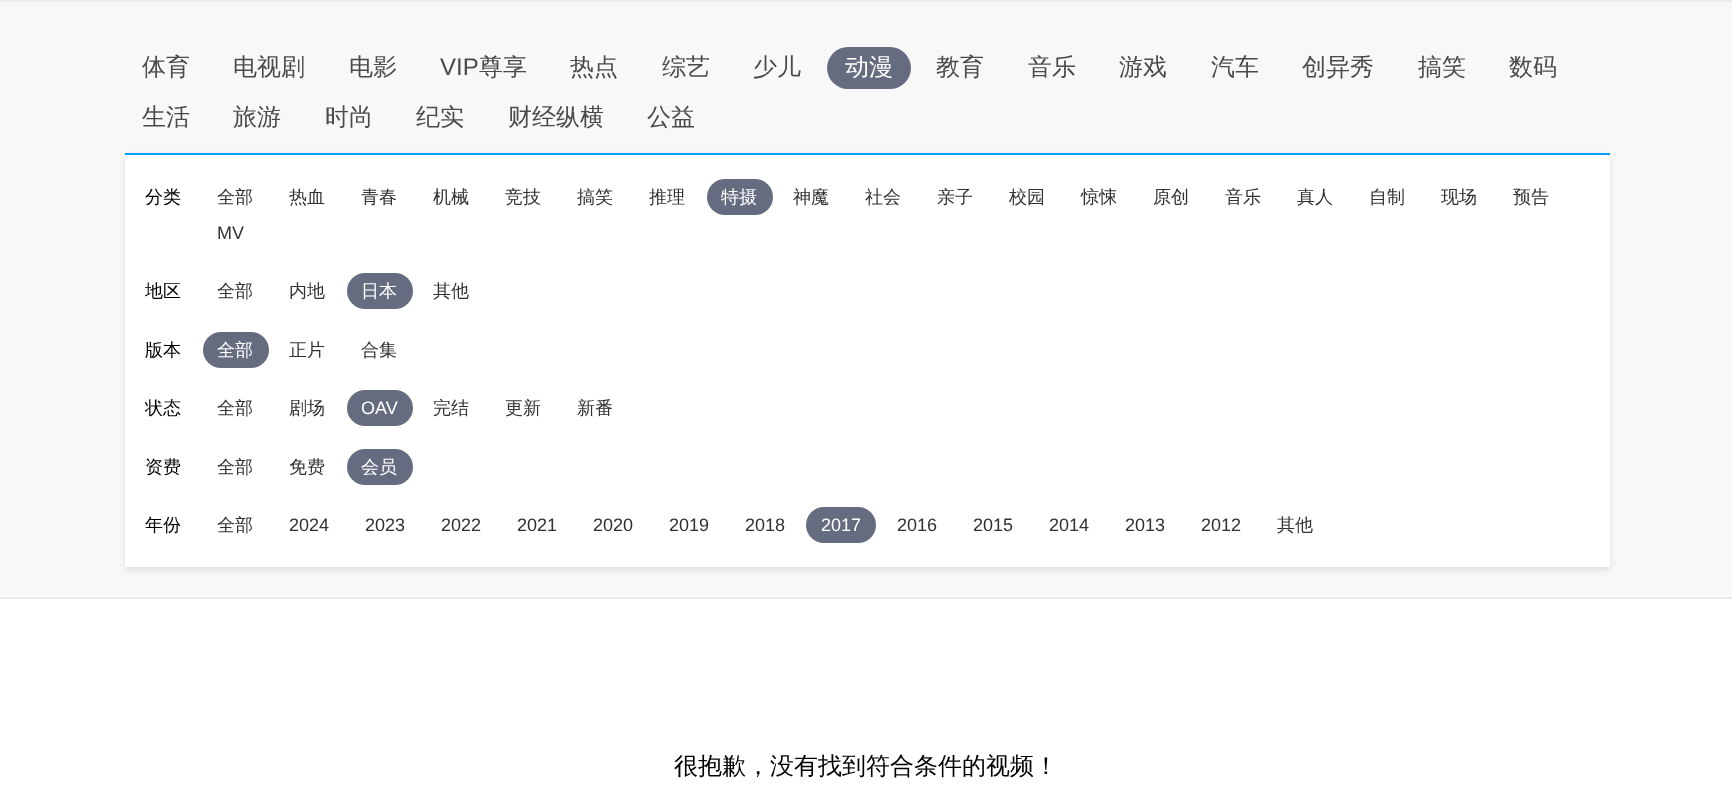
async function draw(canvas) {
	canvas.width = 1732;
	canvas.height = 810;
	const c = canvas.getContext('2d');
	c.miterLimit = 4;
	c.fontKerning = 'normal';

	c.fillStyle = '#fff';
	c.fillRect(0, 0, 1732, 810);
	for (const [x, y, w, h, color] of [
		[0, 2, 1732, 595, '#f8f8f8'],
		[0, 0, 1732, 2, '#ebebeb'],
		[0, 597, 1732, 2, '#ebebeb'],
	]) {
		c.fillStyle = color;
		c.fillRect(x, y, w, h);
	}
	c.font = '500 24px WenQuanYi Zen Hei';
	c.fillStyle = '#4a4a4a';
	for (const [text, x, y] of [
		['体育', 142, 75],
		['电视剧', 233, 75],
		['电影', 349, 75],
	]) {
		c.fillText(text, x, y);
	}
	c.font = '24px Liberation Sans';
	c.fillText('VIP', 440, 75);
	c.font = '500 24px WenQuanYi Zen Hei';
	for (const [text, x, y] of [
		['尊享', 479, 75],
		['热点', 570, 75],
		['综艺', 662, 75],
		['少儿', 753, 75],
	]) {
		c.fillText(text, x, y);
	}
	c.fillStyle = '#656c80';
	c.beginPath();
	c.roundRect(827, 47, 84, 42, 21);
	c.fill();
	c.fillStyle = '#fff';
	c.fillText('动漫', 845, 75);
	c.fillStyle = '#4a4a4a';
	for (const [text, x, y] of [
		['教育', 936, 75],
		['音乐', 1028, 75],
		['游戏', 1119, 75],
		['汽车', 1211, 75],
		['创异秀', 1302, 75],
		['搞笑', 1418, 75],
		['数码', 1509, 75],
		['生活', 142, 125],
		['旅游', 233, 125],
		['时尚', 325, 125],
		['纪实', 416, 125],
		['财经纵横', 508, 125],
		['公益', 647, 125],
	]) {
		c.fillText(text, x, y);
	}
	c.fillStyle = '#0000001a';
	c.filter = 'blur(3px)';
	c.beginPath();
	c.rect(125, 156, 1485, 414);
	c.fill();
	c.filter = 'none';
	c.fillStyle = '#fff';
	c.fillRect(125, 155, 1485, 412);
	c.fillStyle = '#009bff';
	c.fillRect(125, 153, 1485, 2);
	c.font = '500 18px WenQuanYi Zen Hei';
	c.fillStyle = '#000';
	c.fillText('分类', 145, 203);
	c.fillStyle = '#323232';
	for (const [text, x, y] of [
		['全部', 217, 203],
		['热血', 289, 203],
		['青春', 361, 203],
		['机械', 433, 203],
		['竞技', 505, 203],
		['搞笑', 577, 203],
		['推理', 649, 203],
	]) {
		c.fillText(text, x, y);
	}
	c.fillStyle = '#656c80';
	c.beginPath();
	c.roundRect(707, 179, 66, 36, 18);
	c.fill();
	c.fillStyle = '#fff';
	c.fillText('特摄', 721, 203);
	c.fillStyle = '#323232';
	for (const [text, x, y] of [
		['神魔', 793, 203],
		['社会', 865, 203],
		['亲子', 937, 203],
		['校园', 1009, 203],
		['惊悚', 1081, 203],
		['原创', 1153, 203],
		['音乐', 1225, 203],
		['真人', 1297, 203],
		['自制', 1369, 203],
		['现场', 1441, 203],
		['预告', 1513, 203],
	]) {
		c.fillText(text, x, y);
	}
	c.font = '18px Liberation Sans';
	c.fillText('MV', 217, 239);
	c.font = '500 18px WenQuanYi Zen Hei';
	c.fillStyle = '#000';
	c.fillText('地区', 145, 297);
	c.fillStyle = '#323232';
	c.fillText('全部', 217, 297);
	c.fillText('内地', 289, 297);
	c.fillStyle = '#656c80';
	c.beginPath();
	c.roundRect(347, 273, 66, 36, 18);
	c.fill();
	c.fillStyle = '#fff';
	c.fillText('日本', 361, 297);
	c.fillStyle = '#323232';
	c.fillText('其他', 433, 297);
	c.fillStyle = '#000';
	c.fillText('版本', 145, 356);
	c.fillStyle = '#656c80';
	c.beginPath();
	c.roundRect(203, 332, 66, 36, 18);
	c.fill();
	c.fillStyle = '#fff';
	c.fillText('全部', 217, 356);
	c.fillStyle = '#323232';
	c.fillText('正片', 289, 356);
	c.fillText('合集', 361, 356);
	c.fillStyle = '#000';
	c.fillText('状态', 145, 414);
	c.fillStyle = '#323232';
	c.fillText('全部', 217, 414);
	c.fillText('剧场', 289, 414);
	c.fillStyle = '#656c80';
	c.beginPath();
	c.roundRect(347, 390, 66, 36, 18);
	c.fill();
	c.font = '18px Liberation Sans';
	c.fillStyle = '#fff';
	c.fillText('OAV', 361, 414);
	c.font = '500 18px WenQuanYi Zen Hei';
	c.fillStyle = '#323232';
	for (const [text, x, y] of [
		['完结', 433, 414],
		['更新', 505, 414],
		['新番', 577, 414],
	]) {
		c.fillText(text, x, y);
	}
	c.fillStyle = '#000';
	c.fillText('资费', 145, 473);
	c.fillStyle = '#323232';
	c.fillText('全部', 217, 473);
	c.fillText('免费', 289, 473);
	c.fillStyle = '#656c80';
	c.beginPath();
	c.roundRect(347, 449, 66, 36, 18);
	c.fill();
	c.fillStyle = '#fff';
	c.fillText('会员', 361, 473);
	c.fillStyle = '#000';
	c.fillText('年份', 145, 531);
	c.fillStyle = '#323232';
	c.fillText('全部', 217, 531);
	c.font = '18px Liberation Sans';
	for (const [text, x, y] of [
		['2024', 289, 531],
		['2023', 365, 531],
		['2022', 441, 531],
		['2021', 517, 531],
		['2020', 593, 531],
		['2019', 669, 531],
		['2018', 745, 531],
	]) {
		c.fillText(text, x, y);
	}
	c.fillStyle = '#656c80';
	c.beginPath();
	c.roundRect(806, 507, 70, 36, 18);
	c.fill();
	c.fillStyle = '#fff';
	c.fillText('2017', 821, 531);
	c.fillStyle = '#323232';
	for (const [text, x, y] of [
		['2016', 897, 531],
		['2015', 973, 531],
		['2014', 1049, 531],
		['2013', 1125, 531],
		['2012', 1201, 531],
	]) {
		c.fillText(text, x, y);
	}
	c.font = '500 18px WenQuanYi Zen Hei';
	c.fillText('其他', 1277, 531);
	c.font = '500 24px WenQuanYi Zen Hei';
	c.fillStyle = '#000';
	c.fillText('很抱歉，没有找到符合条件的视频！', 674, 774);
}

draw(document.querySelector('canvas'));
